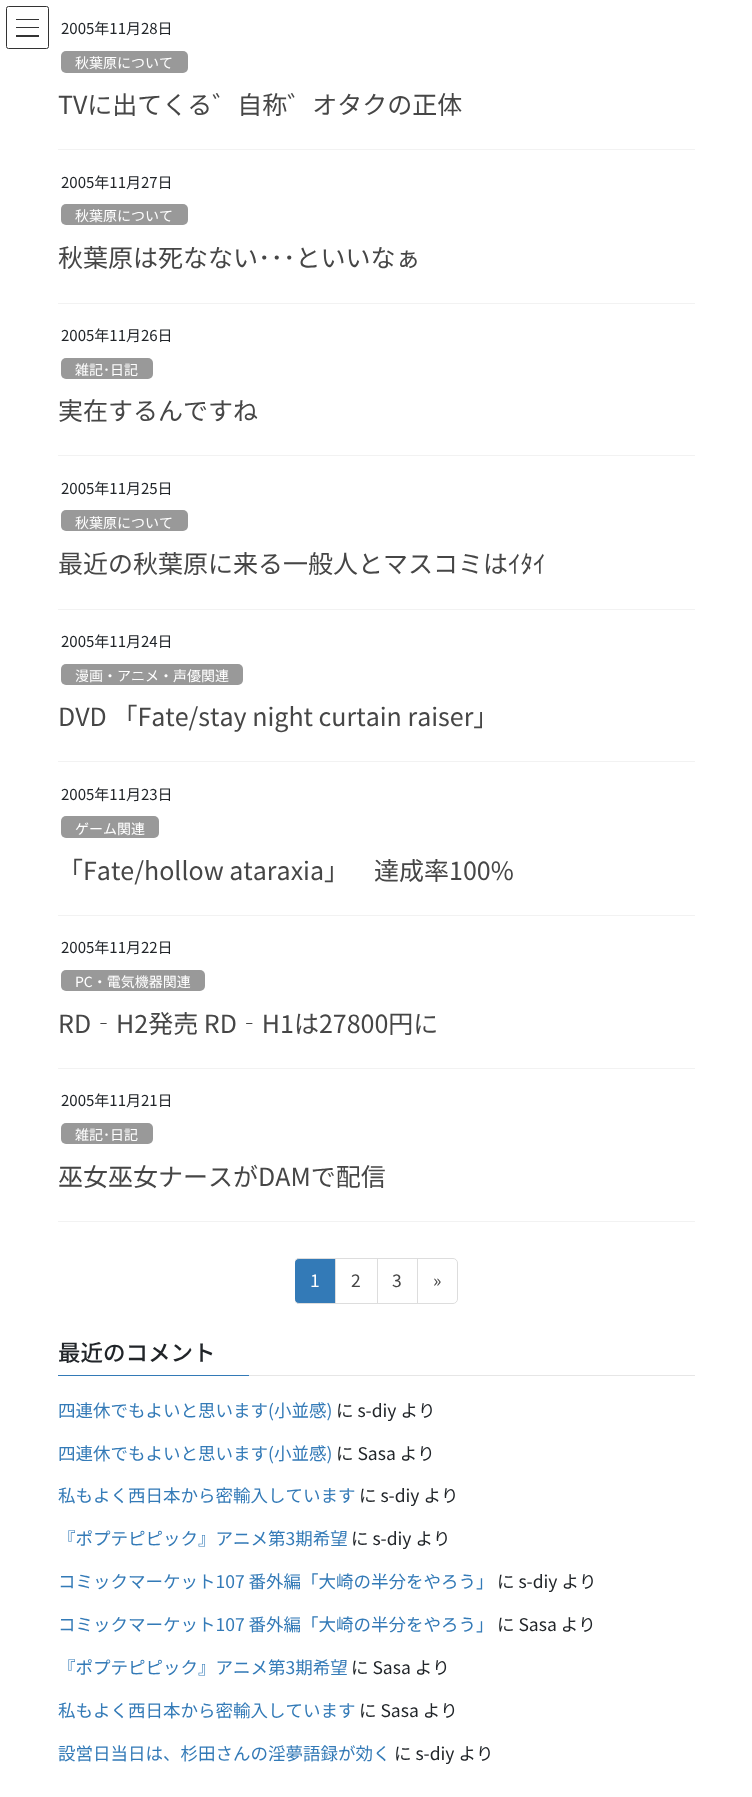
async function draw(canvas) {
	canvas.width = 752;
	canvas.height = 1797;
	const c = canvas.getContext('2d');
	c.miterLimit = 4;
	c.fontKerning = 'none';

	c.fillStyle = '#fff';
	c.fillRect(0, 0, 752, 1797);
	for (const [x, y, w, h, color] of [
		[16, 19, 23, 1, '#333'],
		[16, 27, 23, 1, '#333'],
		[16, 35, 23, 2, '#333'],
	]) {
		c.fillStyle = color;
		c.fillRect(x, y, w, h);
	}
	c.beginPath();
	c.roundRect(6.5, 6.5, 42, 42, 2);
	c.strokeStyle = '#333';
	c.stroke();
	c.fillStyle = '#f2f2f2';
	c.fillRect(58, 149, 637, 1);
	c.font = '15px Noto Sans JP';
	c.fillStyle = '#212529';
	c.fillText('2005年11月28日', 61, 34);
	c.fillStyle = '#999';
	c.beginPath();
	c.roundRect(61, 51, 127, 22, 5);
	c.fill();
	c.font = '14px Noto Sans JP';
	c.fillStyle = '#fff';
	c.fillText('秋葉原について', 75, 68);
	c.font = '25px Noto Sans JP';
	c.fillStyle = '#464646';
	c.fillText('TVに出てくる゛自称゛オタクの正体', 58, 114);
	c.fillStyle = '#f2f2f2';
	c.fillRect(58, 303, 637, 1);
	c.font = '15px Noto Sans JP';
	c.fillStyle = '#212529';
	c.fillText('2005年11月27日', 61, 188);
	c.fillStyle = '#999';
	c.beginPath();
	c.roundRect(61, 204, 127, 21, 5);
	c.fill();
	c.font = '14px Noto Sans JP';
	c.fillStyle = '#fff';
	c.fillText('秋葉原について', 75, 221);
	c.font = '25px Noto Sans JP';
	c.fillStyle = '#464646';
	c.fillText('秋葉原は死なない･･･といいなぁ', 58, 267);
	c.fillStyle = '#f2f2f2';
	c.fillRect(58, 455, 637, 1);
	c.font = '15px Noto Sans JP';
	c.fillStyle = '#212529';
	c.fillText('2005年11月26日', 61, 341);
	c.fillStyle = '#999';
	c.beginPath();
	c.roundRect(61, 358, 92, 21, 5);
	c.fill();
	c.font = '14px Noto Sans JP';
	c.fillStyle = '#fff';
	c.fillText('雑記･日記', 75, 375);
	c.font = '25px Noto Sans JP';
	c.fillStyle = '#464646';
	c.fillText('実在するんですね', 58, 420);
	c.fillStyle = '#f2f2f2';
	c.fillRect(58, 609, 637, 1);
	c.font = '15px Noto Sans JP';
	c.fillStyle = '#212529';
	c.fillText('2005年11月25日', 61, 494);
	c.fillStyle = '#999';
	c.beginPath();
	c.roundRect(61, 510, 127, 21, 5);
	c.fill();
	c.font = '14px Noto Sans JP';
	c.fillStyle = '#fff';
	c.fillText('秋葉原について', 75, 528);
	c.font = '25px Noto Sans JP';
	c.fillStyle = '#464646';
	c.fillText('最近の秋葉原に来る一般人とマスコミはｲﾀｲ', 58, 573);
	c.fillStyle = '#f2f2f2';
	c.fillRect(58, 761, 637, 1);
	c.font = '15px Noto Sans JP';
	c.fillStyle = '#212529';
	c.fillText('2005年11月24日', 61, 647);
	c.fillStyle = '#999';
	c.beginPath();
	c.roundRect(61, 664, 182, 21, 5);
	c.fill();
	c.font = '14px Noto Sans JP';
	c.fillStyle = '#fff';
	c.fillText('漫画・アニメ・声優関連', 75, 681);
	c.font = '25px Noto Sans JP';
	c.fillStyle = '#464646';
	c.fillText('DVD 「Fate/stay night curtain raiser」', 58, 726);
	c.fillStyle = '#f2f2f2';
	c.fillRect(58, 915, 637, 1);
	c.font = '15px Noto Sans JP';
	c.fillStyle = '#212529';
	c.fillText('2005年11月23日', 61, 800);
	c.fillStyle = '#999';
	c.beginPath();
	c.roundRect(61, 816, 98, 22, 5);
	c.fill();
	c.font = '14px Noto Sans JP';
	c.fillStyle = '#fff';
	c.fillText('ゲーム関連', 75, 834);
	c.font = '25px Noto Sans JP';
	c.fillStyle = '#464646';
	c.fillText('「Fate/hollow ataraxia」', 58, 880);
	c.fillText('　達成率100%', 349, 880);
	c.fillStyle = '#f2f2f2';
	c.fillRect(58, 1068, 637, 1);
	c.font = '15px Noto Sans JP';
	c.fillStyle = '#212529';
	c.fillText('2005年11月22日', 61, 953);
	c.fillStyle = '#999';
	c.beginPath();
	c.roundRect(61, 970, 144, 21, 5);
	c.fill();
	c.font = '14px Noto Sans JP';
	c.fillStyle = '#fff';
	c.fillText('PC・電気機器関連', 75, 987);
	c.font = '25px Noto Sans JP';
	c.fillStyle = '#464646';
	c.fillText('RD‐H2発売 RD‐H1は27800円に', 58, 1033);
	c.fillStyle = '#f2f2f2';
	c.fillRect(58, 1221, 637, 1);
	c.font = '15px Noto Sans JP';
	c.fillStyle = '#212529';
	c.fillText('2005年11月21日', 61, 1106);
	c.fillStyle = '#999';
	c.beginPath();
	c.roundRect(61, 1123, 92, 21, 5);
	c.fill();
	c.font = '14px Noto Sans JP';
	c.fillStyle = '#fff';
	c.fillText('雑記･日記', 75, 1140);
	c.font = '25px Noto Sans JP';
	c.fillStyle = '#464646';
	c.fillText('巫女巫女ナースがDAMで配信', 58, 1186);
	c.save();
	c.beginPath();
	c.rect(295, 1258, 41, 46);
	c.clip();
	c.fillStyle = '#337ab7';
	c.beginPath();
	c.roundRect(294.5, 1258.5, 41, 45, [4.5, 0, 0, 4.5]);
	c.fill();
	c.strokeStyle = '#ddd';
	c.stroke();
	c.restore();
	c.font = '17.5px Noto Sans JP';
	c.fillStyle = '#fff';
	c.fillText('1', 310, 1287);
	c.save();
	c.beginPath();
	c.rect(336, 1258, 42, 46);
	c.clip();
	c.strokeStyle = '#ddd';
	c.strokeRect(335.5, 1258.5, 42, 45);
	c.restore();
	c.fillStyle = '#464646';
	c.fillText('2', 351, 1287);
	c.save();
	c.beginPath();
	c.rect(378, 1258, 40, 46);
	c.clip();
	c.strokeStyle = '#ddd';
	c.strokeRect(376.5, 1258.5, 41, 45);
	c.restore();
	c.fillText('3', 392, 1287);
	c.save();
	c.beginPath();
	c.rect(418, 1258, 40, 46);
	c.clip();
	c.beginPath();
	c.roundRect(416.5, 1258.5, 41, 45, [0, 4.5, 4.5, 0]);
	c.strokeStyle = '#ddd';
	c.stroke();
	c.restore();
	c.fillText('»', 433, 1287);
	c.fillStyle = '#e6e6e6';
	c.fillRect(249, 1375, 446, 1);
	c.font = '500 22.5px Noto Sans JP';
	c.fillStyle = '#212529';
	c.fillText('最近のコメント', 58, 1361);
	c.fillStyle = '#337ab7';
	c.fillRect(58, 1375, 191, 1);
	c.font = '17.5px Noto Sans JP';
	c.fillText('四連休でもよいと思います(小並感)', 58, 1417);
	c.fillStyle = '#212529';
	c.fillText('に s-diy より', 336, 1417);
	c.fillStyle = '#337ab7';
	c.fillText('四連休でもよいと思います(小並感)', 58, 1460);
	c.fillStyle = '#212529';
	c.fillText('に Sasa より', 336, 1460);
	c.fillStyle = '#337ab7';
	c.fillText('私もよく西日本から密輸入しています', 58, 1502);
	c.fillStyle = '#212529';
	c.fillText('に s-diy より', 359, 1502);
	c.fillStyle = '#337ab7';
	c.fillText('『ポプテピピック』アニメ第3期希望', 58, 1545);
	c.fillStyle = '#212529';
	c.fillText('に s-diy より', 351, 1545);
	c.fillStyle = '#337ab7';
	c.fillText('コミックマーケット107 番外編「大崎の半分をやろう」', 58, 1588);
	c.fillStyle = '#212529';
	c.fillText('に s-diy より', 497, 1588);
	c.fillStyle = '#337ab7';
	c.fillText('コミックマーケット107 番外編「大崎の半分をやろう」', 58, 1631);
	c.fillStyle = '#212529';
	c.fillText('に Sasa より', 497, 1631);
	c.fillStyle = '#337ab7';
	c.fillText('『ポプテピピック』アニメ第3期希望', 58, 1674);
	c.fillStyle = '#212529';
	c.fillText('に Sasa より', 351, 1674);
	c.fillStyle = '#337ab7';
	c.fillText('私もよく西日本から密輸入しています', 58, 1717);
	c.fillStyle = '#212529';
	c.fillText('に Sasa より', 359, 1717);
	c.fillStyle = '#337ab7';
	c.fillText('設営日当日は、杉田さんの淫夢語録が効く', 58, 1760);
	c.fillStyle = '#212529';
	c.fillText('に s-diy より', 394, 1760);
}

draw(document.querySelector('canvas'));
